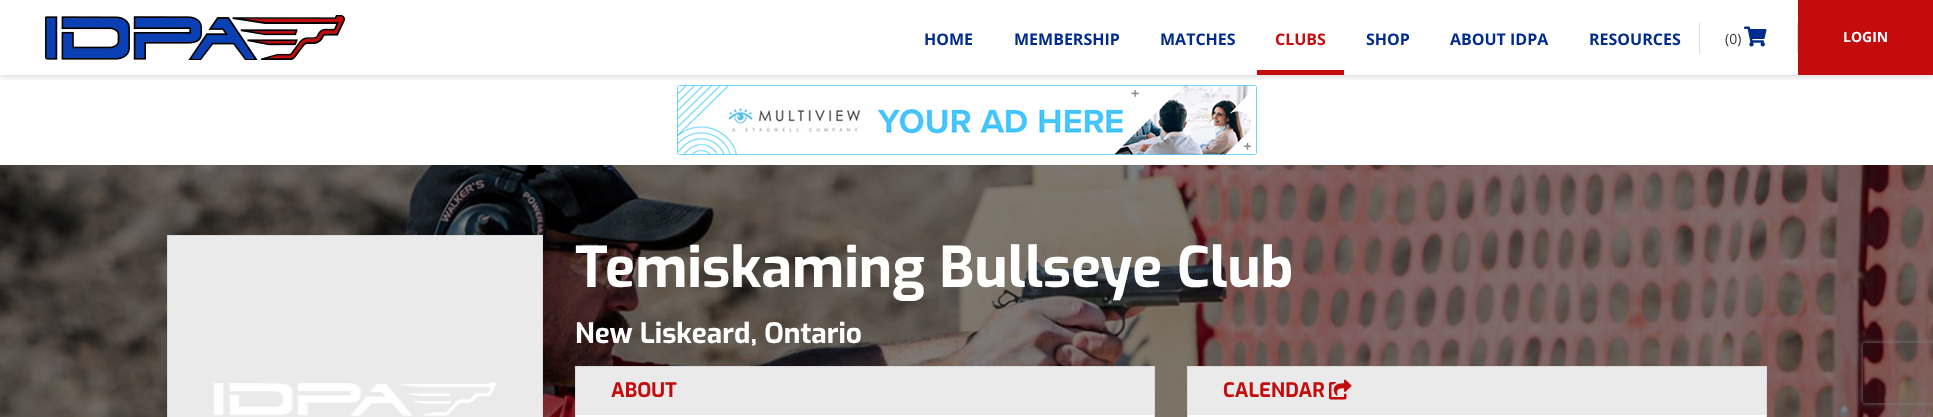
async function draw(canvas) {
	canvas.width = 1933;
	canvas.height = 417;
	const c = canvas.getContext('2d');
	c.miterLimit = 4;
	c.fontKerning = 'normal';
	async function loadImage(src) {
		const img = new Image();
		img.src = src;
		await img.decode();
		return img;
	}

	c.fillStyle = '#fff';
	c.fillRect(0, 0, 1933, 417);
	c.drawImage(await loadImage('img3.png'), 677, 85, 580, 70);
	c.save();
	c.beginPath();
	c.rect(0, 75, 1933, 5);
	c.clip();
	c.fillStyle = '#00000026';
	c.filter = 'blur(3px)';
	c.beginPath();
	c.rect(0, 2, 1933, 75);
	c.fill();
	c.filter = 'none';
	c.restore();
	c.drawImage(await loadImage('img1.png'), 45, 15, 300, 45);
	c.font = 'bold 16px Open Sans';
	c.fillStyle = '#002c8d';
	for (const [text, x, y] of [
		['HOME', 924, 45],
		['MEMBERSHIP', 1014, 45],
		['MATCHES', 1160, 45],
	]) {
		c.fillText(text, x, y);
	}
	c.fillStyle = '#c40c0c';
	c.fillRect(1257, 70, 87, 5);
	c.fillText('CLUBS', 1275, 45);
	c.fillStyle = '#002c8d';
	for (const [text, x, y] of [
		['SHOP', 1366, 45],
		['ABOUT IDPA', 1450, 45],
		['RESOURCES', 1589, 45],
	]) {
		c.fillText(text, x, y);
	}
	c.fillStyle = '#dbdbdb';
	c.fillRect(1797, 23, 1, 30);
	c.fillRect(1699, 23, 1, 30);
	c.font = '14px Open Sans';
	c.fillStyle = '#363636';
	c.fillText('(0)', 1725, 44);
	c.drawImage(await loadImage('img2.png'), 1744, 26, 23, 21);
	c.fillStyle = '#c40c0c';
	c.fillRect(1798, 0, 135, 75);
	c.font = 'bold 14px Open Sans';
	c.fillStyle = '#fff';
	c.fillText('LOGIN', 1843, 42);
	c.drawImage(await loadImage('img4.png'), 0, 165, 1933, 252);
	c.strokeStyle = '#dbdbdb';
	c.strokeRect(167.5, 235.5, 375, 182);
	c.drawImage(await loadImage('img5.png'), 168, 236, 374, 181);
	c.font = 'bold 56px Exo';
	c.fillText('Temiskaming Bullseye Club', 575, 287);
	c.font = 'bold 28px Exo';
	c.fillText('New Liskeard, Ontario', 575, 343);
	c.fillRect(576, 415, 578, 2);
	c.strokeRect(575.5, 366.5, 579, 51);
	c.fillStyle = '#eaeaea';
	c.fillRect(576, 367, 578, 48);
	c.font = 'bold 20px Exo';
	c.fillStyle = '#c40c0c';
	c.fillText('ABOUT', 611, 397);
	c.fillStyle = '#fff';
	c.fillRect(1188, 415, 578, 2);
	c.strokeRect(1187.5, 366.5, 579, 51);
	c.fillStyle = '#eaeaea';
	c.fillRect(1188, 367, 578, 48);
	c.fillStyle = '#c40c0c';
	c.fillText('CALENDAR', 1223, 397);
	c.drawImage(await loadImage('img6.png'), 1329, 379, 23, 21);
	c.save();
	c.beginPath();
	c.moveTo(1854, 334);
	c.lineTo(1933, 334);
	c.lineTo(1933, 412);
	c.lineTo(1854, 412);
	c.closePath();
	c.moveTo(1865, 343);
	c.lineTo(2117, 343);
	c.bezierCurveTo(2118, 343, 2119, 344, 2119, 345);
	c.lineTo(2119, 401);
	c.bezierCurveTo(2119, 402, 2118, 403, 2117, 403);
	c.lineTo(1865, 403);
	c.bezierCurveTo(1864, 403, 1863, 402, 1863, 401);
	c.lineTo(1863, 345);
	c.bezierCurveTo(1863, 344, 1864, 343, 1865, 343);
	c.closePath();
	c.clip('evenodd');
	c.fillStyle = '#808080';
	c.filter = 'blur(2.5px)';
	c.beginPath();
	c.roundRect(1863, 343, 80, 60, 2);
	c.fill();
	c.filter = 'none';
	c.restore();
}

draw(document.querySelector('canvas'));
